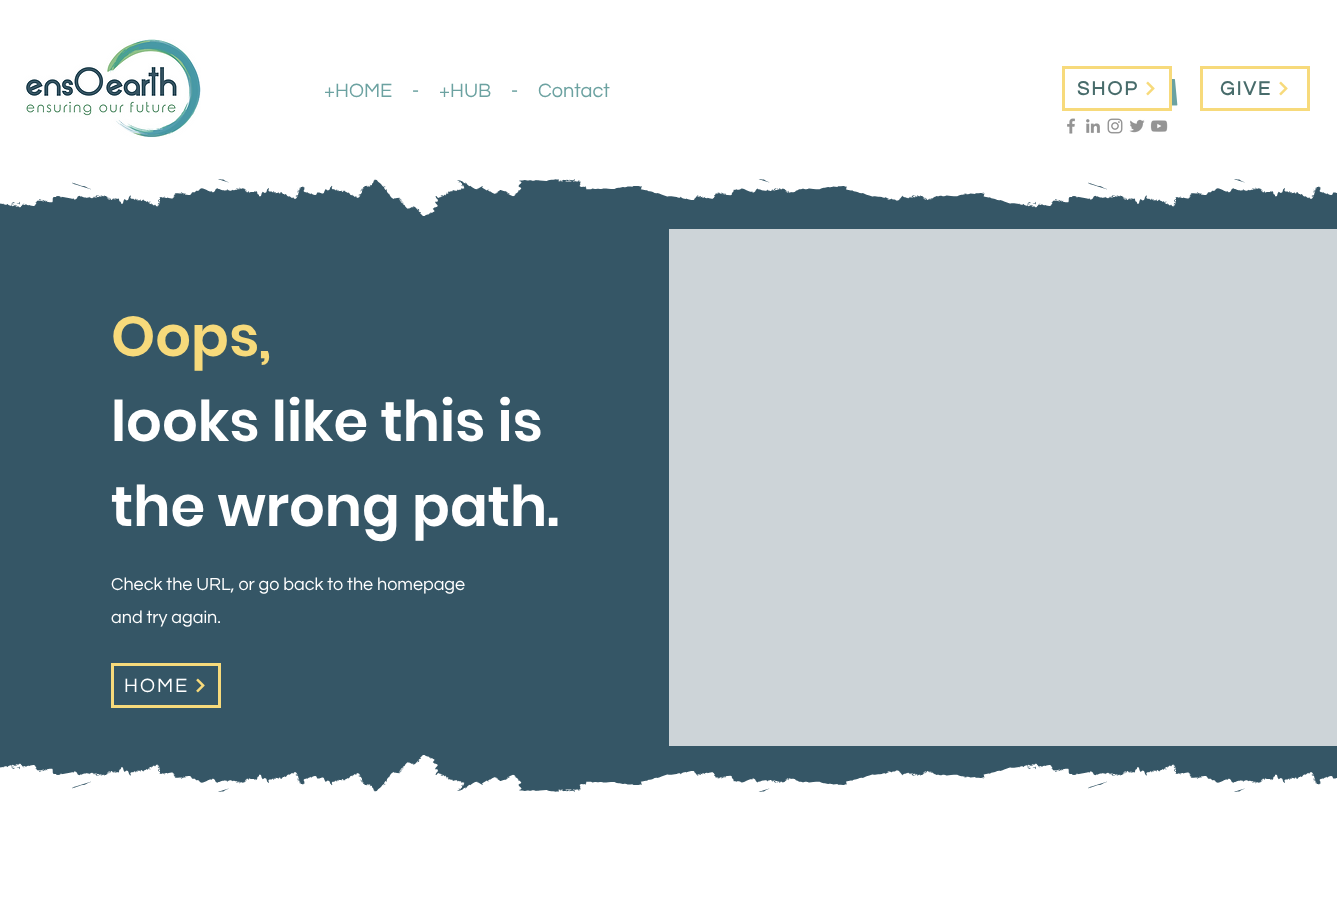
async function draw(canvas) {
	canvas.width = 1337;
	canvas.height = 913;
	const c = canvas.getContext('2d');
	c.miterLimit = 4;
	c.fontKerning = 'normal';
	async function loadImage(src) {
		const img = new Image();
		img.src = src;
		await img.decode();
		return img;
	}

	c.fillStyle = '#fff';
	c.fillRect(0, 0, 1337, 913);
	c.drawImage(await loadImage('img1.png'), 24, 39, 177, 99);
	c.font = '20px Questrial';
	c.fillStyle = '#6ca2a1';
	for (const [text, x, y] of [
		['+HOME', 324, 97],
		['-', 412, 97],
		['+HUB', 439, 97],
		['-', 511, 97],
		['Contact', 538, 97],
	]) {
		c.fillText(text, x, y);
	}
	c.drawImage(await loadImage('img2.png'), 1172, 79, 6, 27);
	c.strokeStyle = '#f7da7b';
	c.lineWidth = 3;
	c.strokeRect(1063.5, 67.5, 107, 42);
	c.letterSpacing = '2px';
	c.font = 'bold 20px Questrial';
	c.fillStyle = '#486c6b';
	c.fillText('SHOP', 1077, 95);
	c.drawImage(await loadImage('img3.png'), 1146, 81, 9, 15);
	c.drawImage(await loadImage('img4.png'), 1067, 118, 8, 16);
	c.drawImage(await loadImage('img5.png'), 1086, 119, 14, 14);
	c.drawImage(await loadImage('img6.png'), 1107, 118, 16, 16);
	c.drawImage(await loadImage('img7.png'), 1129, 119, 16, 14);
	c.drawImage(await loadImage('img8.png'), 1150, 120, 18, 12);
	c.strokeRect(1201.5, 67.5, 107, 42);
	c.fillText('GIVE', 1220, 95);
	c.drawImage(await loadImage('img3.png'), 1279, 81, 9, 15);
	c.fillStyle = '#355666';
	c.fillRect(0, 179, 1337, 613);
	c.drawImage(await loadImage('img9.png'), 0, 166, 1337, 50);
	c.letterSpacing = '0px';
	c.font = '600 56px Poppins';
	c.fillStyle = '#f7da7b';
	c.fillText('Oops,', 111, 356);
	c.fillStyle = '#fff';
	c.fillText('looks like this is', 111, 441);
	c.fillText('the wrong path.', 111, 526);
	c.font = '18px Questrial';
	c.fillText('Check the URL, or go back to the homepage', 111, 590);
	c.fillText('and try again.', 111, 623);
	c.strokeRect(112.5, 664.5, 107, 42);
	c.letterSpacing = '2px';
	c.font = '20px Questrial';
	c.fillText('HOME', 124, 692);
	c.drawImage(await loadImage('img10.png'), 196, 678, 9, 15);
	c.fillStyle = '#cdd4d8';
	c.fillRect(669, 229, 668, 517);
	c.drawImage(await loadImage('img11.png'), 0, 755, 1337, 50);
}

draw(document.querySelector('canvas'));
